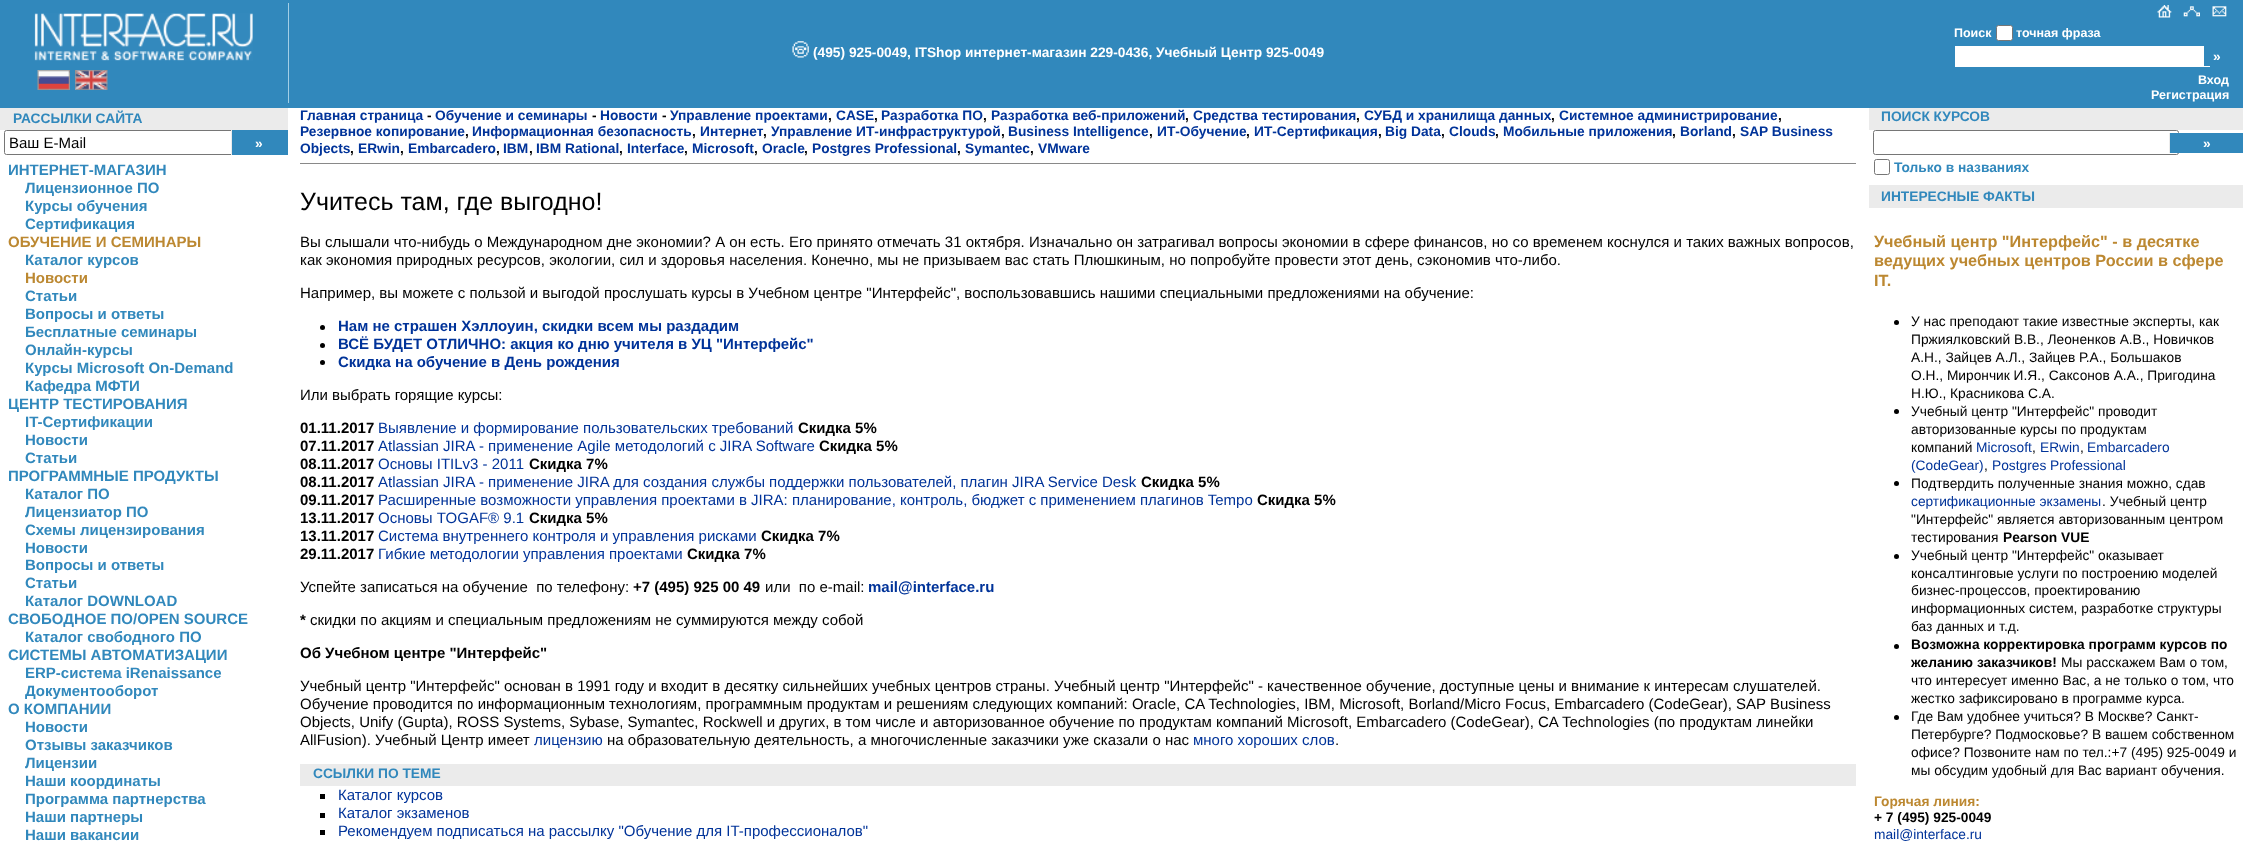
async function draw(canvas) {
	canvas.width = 2243;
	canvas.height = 845;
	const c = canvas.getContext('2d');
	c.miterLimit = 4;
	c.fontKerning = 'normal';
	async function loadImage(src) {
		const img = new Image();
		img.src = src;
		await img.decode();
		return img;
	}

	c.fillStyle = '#fff';
	c.fillRect(0, 0, 2243, 845);
	c.fillStyle = '#3188bc';
	c.fillRect(0, 0, 2243, 108);
	c.drawImage(await loadImage('img1.png'), 34, 13, 219, 48);
	c.drawImage(await loadImage('img2.png'), 37, 70, 33, 20);
	c.drawImage(await loadImage('img3.png'), 75, 70, 33, 20);
	c.fillStyle = '#a2cee6';
	c.fillRect(288, 3, 1, 100);
	c.drawImage(await loadImage('img4.png'), 792, 41, 17, 17);
	c.font = 'bold 13.75px Liberation Sans';
	c.fillStyle = '#fff';
	c.fillText('(495) 925-0049, ITShop интернет-магазин 229-0436, Учебный Центр 925-0049', 813, 57);
	c.drawImage(await loadImage('img5.png'), 2157, 5, 15, 13);
	c.drawImage(await loadImage('img6.png'), 2183, 6, 17, 11);
	c.drawImage(await loadImage('img7.png'), 2212, 6, 15, 11);
	c.font = 'bold 12.5px Liberation Sans';
	c.fillText('Поиск', 1954, 37);
	c.beginPath();
	c.roundRect(1996.5, 25.5, 16, 15, 2);
	c.fill();
	c.strokeStyle = '#767676';
	c.stroke();
	c.fillText('точная фраза', 2016, 37);
	c.fillRect(1955, 46, 255, 21);
	c.fillStyle = '#3188bc';
	c.fillRect(2204, 46, 6, 20);
	c.font = 'bold 13.75px Liberation Sans';
	c.fillStyle = '#fff';
	c.fillText('»', 2213, 61);
	c.font = 'bold 12.5px Liberation Sans';
	c.fillText('Вход', 2198, 84);
	c.fillText('Регистрация', 2151, 99);
	c.fillStyle = '#ebebeb';
	c.fillRect(0, 108, 288, 22);
	c.font = 'bold 13.75px Liberation Sans';
	c.fillStyle = '#3188bc';
	c.fillText('РАССЫЛКИ САЙТА', 13, 123);
	c.beginPath();
	c.roundRect(4.5, 130.5, 234, 24, 2);
	c.stroke();
	c.font = '15px Liberation Sans';
	c.fillStyle = '#000';
	c.fillText('Ваш E-Mail', 9, 148);
	c.fillStyle = '#3188bc';
	c.fillRect(232, 130, 56, 25);
	c.fillStyle = '#ebebeb';
	c.fillRect(231, 130, 1, 25);
	c.font = 'bold 13.75px Liberation Sans';
	c.fillStyle = '#fff';
	c.fillText('»', 255, 148);
	c.font = 'bold 15px Liberation Sans';
	c.fillStyle = '#3188bc';
	for (const [text, x, y] of [
		['ИНТЕРНЕТ-МАГАЗИН', 8, 175],
		['Лицензионное ПО', 25, 193],
		['Курсы обучения', 25, 211],
		['Сертификация', 25, 229],
	]) {
		c.fillText(text, x, y);
	}
	c.fillStyle = '#bc8831';
	c.fillText('ОБУЧЕНИЕ И СЕМИНАРЫ', 8, 247);
	c.fillStyle = '#3188bc';
	c.fillText('Каталог курсов', 25, 265);
	c.fillStyle = '#bc8831';
	c.fillText('Новости', 25, 283);
	c.fillStyle = '#3188bc';
	for (const [text, x, y] of [
		['Статьи', 25, 301],
		['Вопросы и ответы', 25, 319],
		['Бесплатные семинары', 25, 337],
		['Онлайн-курсы', 25, 355],
		['Курсы Microsoft On-Demand', 25, 373],
		['Кафедра МФТИ', 25, 391],
		['ЦЕНТР ТЕСТИРОВАНИЯ', 8, 409],
		['IT-Сертификации', 25, 427],
		['Новости', 25, 445],
		['Статьи', 25, 463],
		['ПРОГРАММНЫЕ ПРОДУКТЫ', 8, 481],
		['Каталог ПО', 25, 499],
		['Лицензиатор ПО', 25, 517],
		['Схемы лицензирования', 25, 535],
		['Новости', 25, 553],
		['Вопросы и ответы', 25, 570],
		['Статьи', 25, 588],
		['Каталог DOWNLOAD', 25, 606],
		['СВОБОДНОЕ ПО/OPEN SOURCE', 8, 624],
		['Каталог свободного ПО', 25, 642],
		['СИСТЕМЫ АВТОМАТИЗАЦИИ', 8, 660],
		['ERP-система iRenaissance', 25, 678],
		['Документооборот', 25, 696],
		['О КОМПАНИИ', 8, 714],
		['Новости', 25, 732],
		['Отзывы заказчиков', 25, 750],
		['Лицензии', 25, 768],
		['Наши координаты', 25, 786],
		['Программа партнерства', 25, 804],
		['Наши партнеры', 25, 822],
		['Наши вакансии', 25, 840],
	]) {
		c.fillText(text, x, y);
	}
	c.fillStyle = '#898989';
	c.fillRect(300, 163, 1556, 1);
	c.font = 'bold 13.75px Liberation Sans';
	c.fillStyle = '#039';
	c.fillText('Главная страница', 300, 120);
	c.fillStyle = '#000';
	c.fillText('-', 427, 120);
	c.fillStyle = '#039';
	c.fillText('Обучение и семинары', 435, 120);
	c.fillStyle = '#000';
	c.fillText('-', 592, 120);
	c.fillStyle = '#039';
	c.fillText('Новости', 600, 120);
	c.fillStyle = '#000';
	c.fillText('-', 662, 120);
	c.fillStyle = '#039';
	for (const [text, x, y] of [
		['Управление проектами', 670, 120],
		['CASE', 836, 120],
		['Разработка ПО', 881, 120],
		['Разработка веб-приложений', 991, 120],
		['Средства тестирования', 1193, 120],
		['СУБД и хранилища данных', 1364, 120],
		['Системное администрирование', 1559, 120],
	]) {
		c.fillText(text, x, y);
	}
	c.fillStyle = '#000';
	for (const [text, x, y] of [
		[',', 828, 120],
		[',', 874, 120],
		[',', 983, 120],
		[',', 1185, 120],
		[',', 1356, 120],
		[',', 1551, 120],
		[',', 1778, 120],
	]) {
		c.fillText(text, x, y);
	}
	c.fillStyle = '#039';
	c.fillText('Резервное копирование', 300, 136);
	c.fillStyle = '#000';
	c.fillText(',', 465, 136);
	c.fillStyle = '#039';
	c.fillText('Информационная безопасность', 472, 136);
	c.fillStyle = '#000';
	c.fillText(',', 692, 136);
	c.fillStyle = '#039';
	c.fillText('Интернет', 700, 136);
	c.fillStyle = '#000';
	c.fillText(',', 763, 136);
	c.fillStyle = '#039';
	c.fillText('Управление ИТ-инфраструктурой', 771, 136);
	c.fillStyle = '#000';
	c.fillText(',', 1001, 136);
	c.fillStyle = '#039';
	c.fillText('Business Intelligence', 1008, 136);
	c.fillStyle = '#000';
	c.fillText(',', 1149, 136);
	c.fillStyle = '#039';
	c.fillText('ИТ-Обучение', 1157, 136);
	c.fillStyle = '#000';
	c.fillText(',', 1246, 136);
	c.fillStyle = '#039';
	c.fillText('ИТ-Сертификация', 1254, 136);
	c.fillStyle = '#000';
	c.fillText(',', 1378, 136);
	c.fillStyle = '#039';
	c.fillText('Big Data', 1385, 136);
	c.fillStyle = '#000';
	c.fillText(',', 1441, 136);
	c.fillStyle = '#039';
	c.fillText('Clouds', 1449, 136);
	c.fillStyle = '#000';
	c.fillText(',', 1495, 136);
	c.fillStyle = '#039';
	c.fillText('Мобильные приложения', 1503, 136);
	c.fillStyle = '#000';
	c.fillText(',', 1672, 136);
	c.fillStyle = '#039';
	c.fillText('Borland', 1680, 136);
	c.fillStyle = '#000';
	c.fillText(',', 1732, 136);
	c.fillStyle = '#039';
	c.fillText('SAP Business', 1740, 136);
	c.fillText('Objects', 300, 153);
	c.fillStyle = '#000';
	c.fillText(',', 350, 153);
	c.fillStyle = '#039';
	c.fillText('ERwin', 358, 153);
	c.fillStyle = '#000';
	c.fillText(',', 400, 153);
	c.fillStyle = '#039';
	c.fillText('Embarcadero', 408, 153);
	c.fillStyle = '#000';
	c.fillText(',', 496, 153);
	c.fillStyle = '#039';
	c.fillText('IBM', 503, 153);
	c.fillStyle = '#000';
	c.fillText(',', 529, 153);
	c.fillStyle = '#039';
	c.fillText('IBM Rational', 536, 153);
	c.fillStyle = '#000';
	c.fillText(',', 619, 153);
	c.fillStyle = '#039';
	c.fillText('Interface', 627, 153);
	c.fillStyle = '#000';
	c.fillText(',', 684, 153);
	c.fillStyle = '#039';
	c.fillText('Microsoft', 692, 153);
	c.fillStyle = '#000';
	c.fillText(',', 754, 153);
	c.fillStyle = '#039';
	c.fillText('Oracle', 762, 153);
	c.fillStyle = '#000';
	c.fillText(',', 804, 153);
	c.fillStyle = '#039';
	c.fillText('Postgres Professional', 812, 153);
	c.fillStyle = '#000';
	c.fillText(',', 957, 153);
	c.fillStyle = '#039';
	c.fillText('Symantec', 965, 153);
	c.fillStyle = '#000';
	c.fillText(',', 1030, 153);
	c.fillStyle = '#039';
	c.fillText('VMware', 1038, 153);
	c.font = '25px Liberation Sans';
	c.fillStyle = '#000';
	c.fillText('Учитесь там, где выгодно!', 300, 210);
	c.font = '15px Liberation Sans';
	for (const [text, x, y] of [
		['Вы слышали что-нибудь о Международном дне экономии? А он есть. Его принято отмечать 31 октября. Изначально он затрагивал вопросы экономии в сфере финансов, но со временем коснулся и таких важных вопросов,', 300, 247],
		['как экономия природных ресурсов, экологии, сил и здоровья населения. Конечно, мы не призываем вас стать Плюшкиным, но попробуйте провести этот день, сэкономив что-либо.', 300, 265],
		['Например, вы можете с пользой и выгодой прослушать курсы в Учебном центре "Интерфейс", воспользовавшись нашими специальными предложениями на обучение:', 300, 298],
	]) {
		c.fillText(text, x, y);
	}
	c.beginPath();
	c.arc(322.5, 327.5, 2.5, 0, 2 * Math.PI);
	c.fill();
	c.font = 'bold 15px Liberation Sans';
	c.fillStyle = '#039';
	c.fillText('Нам не страшен Хэллоуин, скидки всем мы раздадим', 338, 331);
	c.fillStyle = '#000';
	c.beginPath();
	c.arc(322.5, 345.5, 2.5, 0, 2 * Math.PI);
	c.fill();
	c.fillStyle = '#039';
	c.fillText('ВСЁ БУДЕТ ОТЛИЧНО: акция ко дню учителя в УЦ "Интерфейс"', 338, 349);
	c.fillStyle = '#000';
	c.beginPath();
	c.arc(322.5, 362.5, 2.5, 0, 2 * Math.PI);
	c.fill();
	c.fillStyle = '#039';
	c.fillText('Скидка на обучение в День рождения', 338, 367);
	c.font = '15px Liberation Sans';
	c.fillStyle = '#000';
	c.fillText('Или выбрать горящие курсы:', 300, 400);
	c.font = 'bold 15px Liberation Sans';
	c.fillText('01.11.2017', 300, 433);
	c.font = '15px Liberation Sans';
	c.fillStyle = '#039';
	c.fillText('Выявление и формирование пользовательских требований', 378, 433);
	c.font = 'bold 15px Liberation Sans';
	c.fillStyle = '#000';
	c.fillText('Скидка 5%', 798, 433);
	c.fillText('07.11.2017', 300, 451);
	c.font = '15px Liberation Sans';
	c.fillStyle = '#039';
	c.fillText('Atlassian JIRA - применение Agile методологий с JIRA Software', 378, 451);
	c.font = 'bold 15px Liberation Sans';
	c.fillStyle = '#000';
	c.fillText('Скидка 5%', 819, 451);
	c.fillText('08.11.2017', 300, 469);
	c.font = '15px Liberation Sans';
	c.fillStyle = '#039';
	c.fillText('Основы ITILv3 - 2011', 378, 469);
	c.font = 'bold 15px Liberation Sans';
	c.fillStyle = '#000';
	c.fillText('Скидка 7%', 529, 469);
	c.fillText('08.11.2017', 300, 487);
	c.font = '15px Liberation Sans';
	c.fillStyle = '#039';
	c.fillText('Atlassian JIRA - применение JIRA для создания службы поддержки пользователей, плагин JIRA Service Desk', 378, 487);
	c.font = 'bold 15px Liberation Sans';
	c.fillStyle = '#000';
	c.fillText('Скидка 5%', 1141, 487);
	c.fillText('09.11.2017', 300, 505);
	c.font = '15px Liberation Sans';
	c.fillStyle = '#039';
	c.fillText('Расширенные возможности управления проектами в JIRA: планирование, контроль, бюджет с применением плагинов Tempo', 378, 505);
	c.font = 'bold 15px Liberation Sans';
	c.fillStyle = '#000';
	c.fillText('Скидка 5%', 1257, 505);
	c.fillText('13.11.2017', 300, 523);
	c.font = '15px Liberation Sans';
	c.fillStyle = '#039';
	c.fillText('Основы TOGAF® 9.1', 378, 523);
	c.font = 'bold 15px Liberation Sans';
	c.fillStyle = '#000';
	c.fillText('Скидка 5%', 529, 523);
	c.fillText('13.11.2017', 300, 541);
	c.font = '15px Liberation Sans';
	c.fillStyle = '#039';
	c.fillText('Система внутреннего контроля и управления рисками', 378, 541);
	c.font = 'bold 15px Liberation Sans';
	c.fillStyle = '#000';
	c.fillText('Скидка 7%', 761, 541);
	c.fillText('29.11.2017', 300, 559);
	c.font = '15px Liberation Sans';
	c.fillStyle = '#039';
	c.fillText('Гибкие методологии управления проектами', 378, 559);
	c.font = 'bold 15px Liberation Sans';
	c.fillStyle = '#000';
	c.fillText('Скидка 7%', 687, 559);
	c.font = '15px Liberation Sans';
	c.fillText('Успейте записаться на обучение  по телефону:', 300, 592);
	c.font = 'bold 15px Liberation Sans';
	c.fillText('+7 (495) 925 00 49', 633, 592);
	c.font = '15px Liberation Sans';
	c.fillText('или  по e-mail:', 765, 592);
	c.font = 'bold 15px Liberation Sans';
	c.fillStyle = '#039';
	c.fillText('mail@interface.ru', 868, 592);
	c.fillStyle = '#000';
	c.fillText('*', 300, 625);
	c.font = '15px Liberation Sans';
	c.fillText('скидки по акциям и специальным предложениям не суммируются между собой', 310, 625);
	c.font = 'bold 15px Liberation Sans';
	c.fillText('Об Учебном центре "Интерфейс"', 300, 658);
	c.font = '15px Liberation Sans';
	for (const [text, x, y] of [
		['Учебный центр "Интерфейс" основан в 1991 году и входит в десятку сильнейших учебных центров страны. Учебный центр "Интерфейс" - качественное обучение, доступные цены и внимание к интересам слушателей.', 300, 691],
		['Обучение проводится по информационным технологиям, программным продуктам и решениям следующих компаний: Oracle, CA Technologies, IBM, Microsoft, Borland/Micro Focus, Embarcadero (CodeGear), SAP Business', 300, 709],
		['Objects, Unify (Gupta), ROSS Systems, Sybase, Symantec, Rockwell и других, в том числе и авторизованное обучение по продуктам компаний Microsoft, Embarcadero (CodeGear), CA Technologies (по продуктам линейки', 300, 727],
		['AllFusion). Учебный Центр имеет', 300, 745],
	]) {
		c.fillText(text, x, y);
	}
	c.fillStyle = '#039';
	c.fillText('лицензию', 534, 745);
	c.fillStyle = '#000';
	c.fillText('на образовательную деятельность, а многочисленные заказчики уже сказали о нас', 607, 745);
	c.fillStyle = '#039';
	c.fillText('много хороших слов', 1193, 745);
	c.fillStyle = '#000';
	c.fillText('.', 1335, 745);
	c.fillStyle = '#ebebeb';
	c.fillRect(300, 764, 1556, 22);
	c.font = 'bold 13.75px Liberation Sans';
	c.fillStyle = '#3188bc';
	c.fillText('ССЫЛКИ ПО ТЕМЕ', 313, 778);
	c.fillStyle = '#000';
	c.fillRect(320, 794, 5, 5);
	c.font = '15px Liberation Sans';
	c.fillStyle = '#039';
	c.fillText('Каталог курсов', 338, 800);
	c.fillStyle = '#000';
	c.fillRect(320, 813, 5, 5);
	c.fillStyle = '#039';
	c.fillText('Каталог экзаменов', 338, 818);
	c.fillStyle = '#000';
	c.fillRect(320, 830, 5, 5);
	c.fillStyle = '#039';
	c.fillText('Рекомендуем подписаться на рассылку "Обучение для IT-профессионалов"', 338, 836);
	c.fillStyle = '#ebebeb';
	c.fillRect(1869, 108, 374, 22);
	c.font = 'bold 13.75px Liberation Sans';
	c.fillStyle = '#3188bc';
	c.fillText('ПОИСК КУРСОВ', 1881, 121);
	c.beginPath();
	c.roundRect(1873.5, 130.5, 305, 24, 2);
	c.stroke();
	c.fillRect(2170, 133, 73, 20);
	c.fillStyle = '#ebebeb';
	c.fillRect(2169, 133, 1, 20);
	c.fillStyle = '#fff';
	c.fillText('»', 2203, 148);
	c.beginPath();
	c.roundRect(1874.5, 159.5, 15, 15, 2);
	c.stroke();
	c.fillStyle = '#3188bc';
	c.fillText('Только в названиях', 1894, 172);
	c.fillStyle = '#ebebeb';
	c.fillRect(1869, 185, 374, 23);
	c.fillStyle = '#3188bc';
	c.fillText('ИНТЕРЕСНЫЕ ФАКТЫ', 1881, 201);
	c.font = 'bold 16.25px Liberation Sans';
	c.fillStyle = '#bc8831';
	for (const [text, x, y] of [
		['Учебный центр "Интерфейс" - в десятке', 1874, 247],
		['ведущих учебных центров России в сфере', 1874, 266],
		['IT.', 1874, 286],
	]) {
		c.fillText(text, x, y);
	}
	c.fillStyle = '#000';
	c.beginPath();
	c.arc(1896.5, 322.5, 2.5, 0, 2 * Math.PI);
	c.fill();
	c.font = '13.75px Liberation Sans';
	for (const [text, x, y] of [
		['У нас преподают такие известные эксперты, как', 1911, 326],
		['Пржиялковский В.В., Леоненков А.В., Новичков', 1911, 344],
		['А.Н., Зайцев А.Л., Зайцев Р.А., Большаков', 1911, 362],
		['О.Н., Мирончик И.Я., Саксонов А.А., Пригодина', 1911, 380],
		['Н.Ю., Красникова С.А.', 1911, 398],
	]) {
		c.fillText(text, x, y);
	}
	c.beginPath();
	c.arc(1896.5, 411.5, 2.5, 0, 2 * Math.PI);
	c.fill();
	for (const [text, x, y] of [
		['Учебный центр "Интерфейс" проводит', 1911, 416],
		['авторизованные курсы по продуктам', 1911, 434],
		['компаний', 1911, 452],
	]) {
		c.fillText(text, x, y);
	}
	c.fillStyle = '#039';
	c.fillText('Microsoft', 1976, 452);
	c.fillStyle = '#000';
	c.fillText(',', 2032, 452);
	c.fillStyle = '#039';
	c.fillText('ERwin', 2040, 452);
	c.fillStyle = '#000';
	c.fillText(',', 2080, 452);
	c.fillStyle = '#039';
	c.fillText('Embarcadero', 2087, 452);
	c.fillText('(CodeGear)', 1911, 470);
	c.fillStyle = '#000';
	c.fillText(',', 1984, 470);
	c.fillStyle = '#039';
	c.fillText('Postgres Professional', 1992, 470);
	c.fillStyle = '#000';
	c.beginPath();
	c.arc(1896.5, 483.5, 2.5, 0, 2 * Math.PI);
	c.fill();
	c.fillText('Подтвердить полученные знания можно, сдав', 1911, 488);
	c.fillStyle = '#039';
	c.fillText('сертификационные экзамены', 1911, 506);
	c.fillStyle = '#000';
	for (const [text, x, y] of [
		['. Учебный центр', 2102, 506],
		['"Интерфейс" является авторизованным центром', 1911, 524],
		['тестирования', 1911, 542],
	]) {
		c.fillText(text, x, y);
	}
	c.font = 'bold 13.75px Liberation Sans';
	c.fillText('Pearson VUE', 2003, 542);
	c.beginPath();
	c.arc(1896.5, 556.5, 2.5, 0, 2 * Math.PI);
	c.fill();
	c.font = '13.75px Liberation Sans';
	for (const [text, x, y] of [
		['Учебный центр "Интерфейс" оказывает', 1911, 560],
		['консалтинговые услуги по построению моделей', 1911, 578],
		['бизнес-процессов, проектированию', 1911, 595],
		['информационных систем, разработке структуры', 1911, 613],
		['баз данных и т.д.', 1911, 631],
	]) {
		c.fillText(text, x, y);
	}
	c.beginPath();
	c.arc(1896.5, 646.5, 2.5, 0, 2 * Math.PI);
	c.fill();
	c.font = 'bold 13.75px Liberation Sans';
	c.fillText('Возможна корректировка программ курсов по', 1911, 649);
	c.fillText('желанию заказчиков!', 1911, 667);
	c.font = '13.75px Liberation Sans';
	for (const [text, x, y] of [
		['Мы расскажем Вам о том,', 2061, 667],
		['что интересует именно Вас, а не только о том, что', 1911, 685],
		['жестко зафиксировано в программе курса.', 1911, 703],
	]) {
		c.fillText(text, x, y);
	}
	c.beginPath();
	c.arc(1896.5, 717.5, 2.5, 0, 2 * Math.PI);
	c.fill();
	for (const [text, x, y] of [
		['Где Вам удобнее учиться? В Москве? Санкт-', 1911, 721],
		['Петербурге? Подмосковье? В вашем собственном', 1911, 739],
		['офисе? Позвоните нам по тел.:+7 (495) 925-0049 и', 1911, 757],
		['мы обсудим удобный для Вас вариант обучения.', 1911, 775],
	]) {
		c.fillText(text, x, y);
	}
	c.font = 'bold 13.75px Liberation Sans';
	c.fillStyle = '#bc8831';
	c.fillText('Горячая линия:', 1874, 806);
	c.fillStyle = '#000';
	c.fillText('+ 7 (495) 925-0049', 1874, 822);
	c.font = '13.75px Liberation Sans';
	c.fillStyle = '#039';
	c.fillText('mail@interface.ru', 1874, 839);
}

draw(document.querySelector('canvas'));
